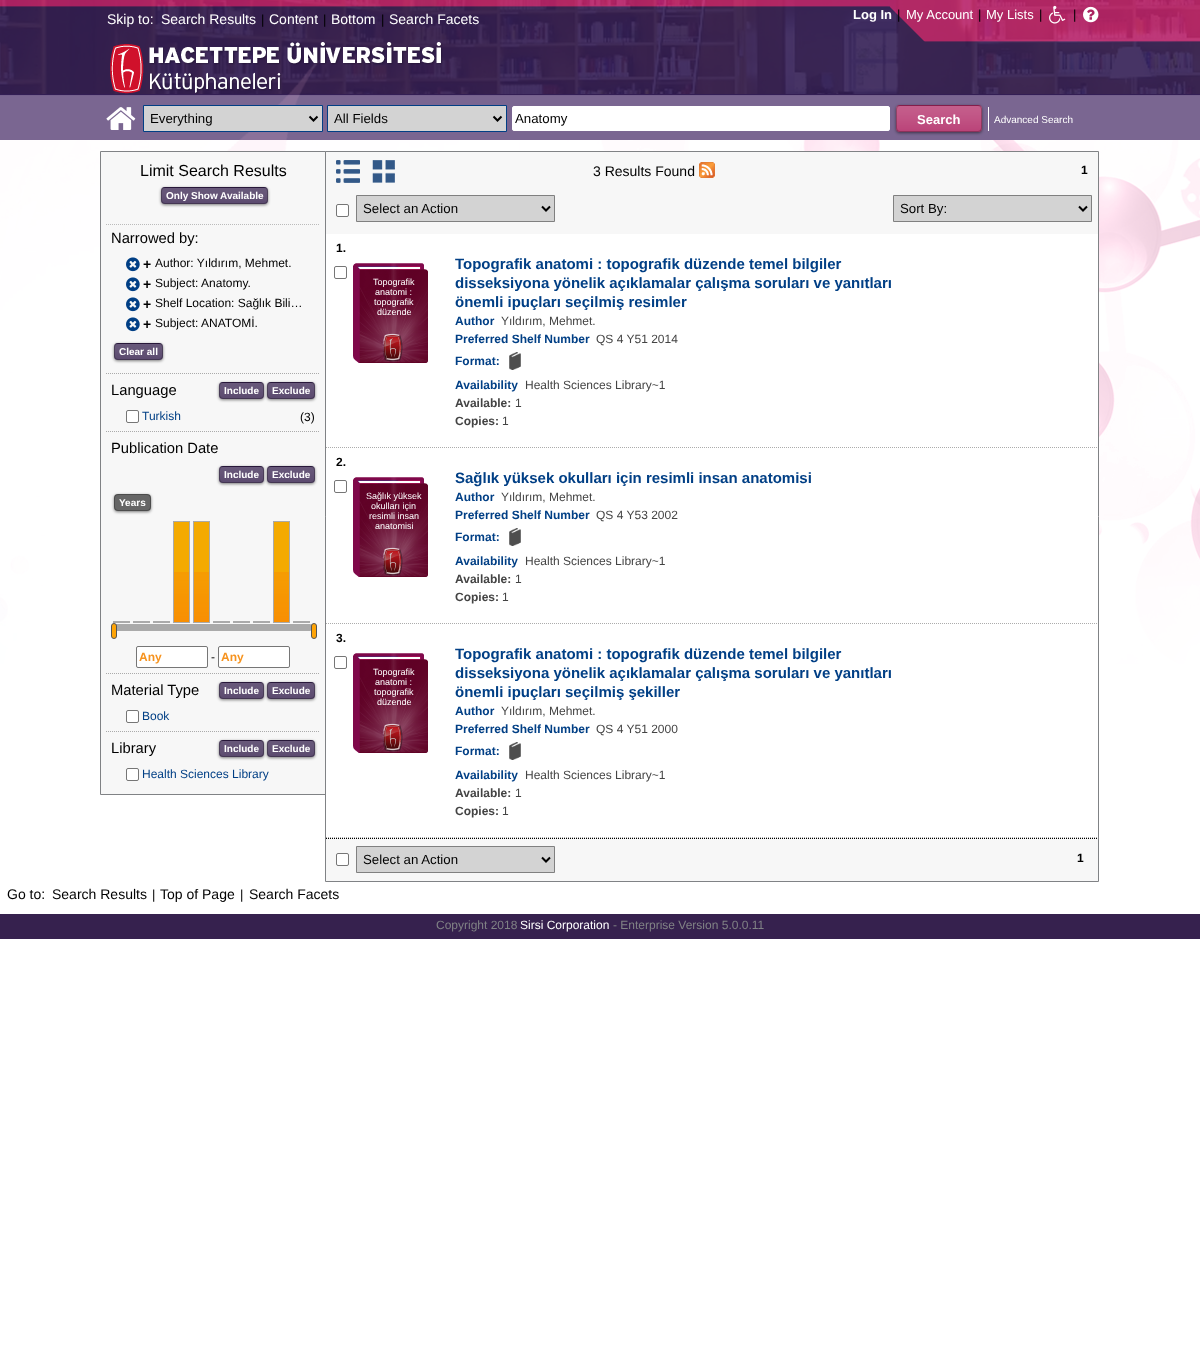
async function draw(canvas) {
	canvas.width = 1200;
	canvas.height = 1363;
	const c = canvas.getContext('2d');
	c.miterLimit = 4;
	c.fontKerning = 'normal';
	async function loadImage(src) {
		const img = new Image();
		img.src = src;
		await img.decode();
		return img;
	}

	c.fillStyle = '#fff';
	c.fillRect(0, 0, 1200, 1363);
	c.drawImage(await loadImage('img1.png'), 0, 0, 1200, 664);
	c.font = '14px Liberation Sans';
	c.fillText('Skip to:', 107, 24);
	c.fillText('Search Results', 161, 24);
	c.font = '13px Liberation Sans';
	c.fillStyle = '#000';
	c.fillText('|', 261, 24);
	c.font = '14px Liberation Sans';
	c.fillStyle = '#fff';
	c.fillText('Content', 269, 24);
	c.font = '13px Liberation Sans';
	c.fillStyle = '#000';
	c.fillText('|', 323, 24);
	c.font = '14px Liberation Sans';
	c.fillStyle = '#fff';
	c.fillText('Bottom', 331, 24);
	c.font = '13px Liberation Sans';
	c.fillStyle = '#000';
	c.fillText('|', 381, 24);
	c.font = '14px Liberation Sans';
	c.fillStyle = '#fff';
	c.fillText('Search Facets', 389, 24);
	c.font = 'bold 13px Liberation Sans';
	c.fillText('Log In', 853, 19);
	c.font = '13px Liberation Sans';
	c.fillStyle = '#000';
	c.fillText('|', 897, 19);
	c.fillStyle = '#fff';
	c.fillText('My Account', 906, 19);
	c.fillStyle = '#000';
	c.fillText('|', 978, 19);
	c.fillStyle = '#fff';
	c.fillText('My Lists', 986, 19);
	c.fillStyle = '#000';
	c.fillText('|', 1039, 19);
	c.drawImage(await loadImage('img2.png'), 1049, 5, 17, 19);
	c.fillText('|', 1073, 19);
	c.drawImage(await loadImage('img3.png'), 1083, 6, 16, 17);
	c.drawImage(await loadImage('img4.png'), 110, 42, 333, 52);
	c.drawImage(await loadImage('img5.png'), 106, 107, 30, 23);
	c.fillStyle = '#d3d3d3';
	c.beginPath();
	c.rect(143.5, 105.5, 179, 26);
	c.fill();
	c.strokeStyle = '#013f85';
	c.stroke();
	c.beginPath();
	c.moveTo(309.5, 116.5);
	c.lineTo(313.5, 120.5);
	c.lineTo(317.5, 116.5);
	c.strokeStyle = '#000';
	c.lineWidth = 2;
	c.stroke();
	c.font = '13.25px Liberation Sans';
	c.fillStyle = '#000';
	c.fillText('Everything', 150, 123);
	c.fillStyle = '#d3d3d3';
	c.beginPath();
	c.rect(327.5, 105.5, 179, 26);
	c.fill();
	c.strokeStyle = '#013f85';
	c.lineWidth = 1;
	c.stroke();
	c.beginPath();
	c.moveTo(493.5, 116.5);
	c.lineTo(497.5, 120.5);
	c.lineTo(501.5, 116.5);
	c.strokeStyle = '#000';
	c.lineWidth = 2;
	c.stroke();
	c.fillStyle = '#000';
	c.fillText('All Fields', 334, 123);
	c.fillStyle = '#fff';
	c.beginPath();
	c.roundRect(512.5, 106.5, 377, 24, 1.5);
	c.fill();
	c.strokeStyle = '#fff';
	c.lineWidth = 1;
	c.stroke();
	c.fillStyle = '#000';
	c.fillText('Anatomy', 515, 123);
	c.fillStyle = '#00000080';
	c.filter = 'blur(1.5px)';
	c.beginPath();
	c.roundRect(896, 106, 86, 27, 4);
	c.fill();
	c.filter = 'none';
	c.fillStyle = '#b12865';
	c.beginPath();
	c.roundRect(896, 105, 86, 27, 4);
	c.fill();
	c.drawImage(await loadImage('img6.png'), 896, 106, 86, 26);
	c.beginPath();
	c.roundRect(896.5, 105.5, 85, 26, 3.5);
	c.strokeStyle = '#00000040';
	c.stroke();
	c.font = 'bold 13px Liberation Sans';
	c.fillStyle = '#fff';
	c.fillText('Search', 917, 124);
	c.fillRect(988, 107, 1, 24);
	c.font = '10px Liberation Sans';
	c.fillText('Advanced Search', 994, 123);
	c.fillStyle = '#f7f7f7';
	c.beginPath();
	c.rect(100.5, 151.5, 225, 643);
	c.fill();
	c.strokeStyle = '#808285';
	c.stroke();
	c.font = '16px Liberation Sans';
	c.fillStyle = '#000';
	c.fillText('Limit Search Results', 140, 176);
	c.fillStyle = '#00000080';
	c.filter = 'blur(1.5px)';
	c.beginPath();
	c.roundRect(161, 188, 107, 17, 4);
	c.fill();
	c.filter = 'none';
	c.fillStyle = '#36214e';
	c.beginPath();
	c.roundRect(161, 187, 107, 17, 4);
	c.fill();
	c.drawImage(await loadImage('img7.png'), 161, 188, 107, 16);
	c.beginPath();
	c.roundRect(161.5, 187.5, 106, 16, 3.5);
	c.strokeStyle = '#00000040';
	c.stroke();
	c.font = 'bold 10px Liberation Sans';
	c.fillStyle = '#fff';
	c.fillText('Only Show Available', 166, 199);
	c.beginPath();
	c.moveTo(106, 224.5);
	c.lineTo(320, 224.5);
	c.strokeStyle = '#bbb';
	c.setLineDash([1, 1]);
	c.stroke();
	c.font = '14.75px Liberation Sans';
	c.fillStyle = '#000';
	c.fillText('Narrowed by:', 111, 243);
	c.drawImage(await loadImage('img8.png'), 126, 257, 14, 15);
	c.font = 'bold 14px Liberation Sans';
	c.fillText('+', 143, 269);
	c.font = '12px Liberation Sans';
	c.fillText('Author: Yıldırım, Mehmet.', 155, 267);
	c.drawImage(await loadImage('img8.png'), 126, 277, 14, 15);
	c.font = 'bold 14px Liberation Sans';
	c.fillText('+', 143, 289);
	c.font = '12px Liberation Sans';
	c.fillText('Subject: Anatomy.', 155, 287);
	c.drawImage(await loadImage('img8.png'), 126, 297, 14, 15);
	c.font = 'bold 14px Liberation Sans';
	c.fillText('+', 143, 309);
	c.font = '12px Liberation Sans';
	c.fillText('Shelf Location: Sağlık Bili…', 155, 307);
	c.drawImage(await loadImage('img8.png'), 126, 317, 14, 15);
	c.font = 'bold 14px Liberation Sans';
	c.fillText('+', 143, 329);
	c.font = '12px Liberation Sans';
	c.fillText('Subject: ANATOMİ.', 155, 327);
	c.fillStyle = '#00000080';
	c.filter = 'blur(1.5px)';
	c.beginPath();
	c.roundRect(114, 344, 49, 17, 4);
	c.fill();
	c.filter = 'none';
	c.fillStyle = '#36214e';
	c.beginPath();
	c.roundRect(114, 343, 49, 17, 4);
	c.fill();
	c.drawImage(await loadImage('img9.png'), 114, 344, 49, 16);
	c.beginPath();
	c.roundRect(114.5, 343.5, 48, 16, 3.5);
	c.strokeStyle = '#00000040';
	c.setLineDash([]);
	c.stroke();
	c.font = 'bold 10px Liberation Sans';
	c.fillStyle = '#fff';
	c.fillText('Clear all', 119, 355);
	c.beginPath();
	c.moveTo(106, 373.5);
	c.lineTo(320, 373.5);
	c.strokeStyle = '#aaa';
	c.setLineDash([1, 1]);
	c.stroke();
	c.font = '14.75px Liberation Sans';
	c.fillStyle = '#000';
	c.fillText('Language', 111, 395);
	c.fillStyle = '#00000080';
	c.filter = 'blur(1.5px)';
	c.beginPath();
	c.roundRect(219, 383, 45, 17, 4);
	c.fill();
	c.filter = 'none';
	c.fillStyle = '#36214e';
	c.beginPath();
	c.roundRect(219, 382, 45, 17, 4);
	c.fill();
	c.drawImage(await loadImage('img10.png'), 219, 383, 45, 16);
	c.beginPath();
	c.roundRect(219.5, 382.5, 44, 16, 3.5);
	c.strokeStyle = '#00000040';
	c.setLineDash([]);
	c.stroke();
	c.font = 'bold 10px Liberation Sans';
	c.fillStyle = '#fff';
	c.fillText('Include', 224, 394);
	c.fillStyle = '#00000080';
	c.filter = 'blur(1.5px)';
	c.beginPath();
	c.roundRect(267, 383, 48, 17, 4);
	c.fill();
	c.filter = 'none';
	c.fillStyle = '#36214e';
	c.beginPath();
	c.roundRect(267, 382, 48, 17, 4);
	c.fill();
	c.drawImage(await loadImage('img11.png'), 267, 383, 48, 16);
	c.beginPath();
	c.roundRect(267.5, 382.5, 47, 16, 3.5);
	c.stroke();
	c.fillStyle = '#fff';
	c.fillText('Exclude', 272, 394);
	c.beginPath();
	c.roundRect(126.5, 410.5, 12, 12, 1.5);
	c.fill();
	c.strokeStyle = '#767676';
	c.stroke();
	c.font = '12px Liberation Sans';
	c.fillStyle = '#013f85';
	c.fillText('Turkish', 142, 420);
	c.fillStyle = '#000';
	c.fillText('(3)', 300, 421);
	c.beginPath();
	c.moveTo(106, 431.5);
	c.lineTo(320, 431.5);
	c.strokeStyle = '#aaa';
	c.setLineDash([1, 1]);
	c.stroke();
	c.font = '14.75px Liberation Sans';
	c.fillText('Publication Date', 111, 453);
	c.fillStyle = '#00000080';
	c.filter = 'blur(1.5px)';
	c.beginPath();
	c.roundRect(219, 467, 45, 17, 4);
	c.fill();
	c.filter = 'none';
	c.fillStyle = '#36214e';
	c.beginPath();
	c.roundRect(219, 466, 45, 17, 4);
	c.fill();
	c.drawImage(await loadImage('img10.png'), 219, 467, 45, 16);
	c.beginPath();
	c.roundRect(219.5, 466.5, 44, 16, 3.5);
	c.strokeStyle = '#00000040';
	c.setLineDash([]);
	c.stroke();
	c.font = 'bold 10px Liberation Sans';
	c.fillStyle = '#fff';
	c.fillText('Include', 224, 478);
	c.fillStyle = '#00000080';
	c.filter = 'blur(1.5px)';
	c.beginPath();
	c.roundRect(267, 467, 48, 17, 4);
	c.fill();
	c.filter = 'none';
	c.fillStyle = '#36214e';
	c.beginPath();
	c.roundRect(267, 466, 48, 17, 4);
	c.fill();
	c.drawImage(await loadImage('img11.png'), 267, 467, 48, 16);
	c.beginPath();
	c.roundRect(267.5, 466.5, 47, 16, 3.5);
	c.stroke();
	c.fillStyle = '#fff';
	c.fillText('Exclude', 272, 478);
	c.fillStyle = '#00000080';
	c.filter = 'blur(1.5px)';
	c.beginPath();
	c.roundRect(114, 495, 37, 17, 4);
	c.fill();
	c.filter = 'none';
	c.fillStyle = '#666';
	c.beginPath();
	c.roundRect(114, 494, 37, 17, 4);
	c.fill();
	c.beginPath();
	c.roundRect(114.5, 494.5, 36, 16, 3.5);
	c.stroke();
	c.fillStyle = '#fff';
	c.fillText('Years', 119, 506);
	for (const [x, y, w, h, color] of [
		[113, 621, 17, 2, '#aaa'],
		[133, 621, 17, 2, '#aaa'],
		[153, 621, 17, 2, '#aaa'],
		[174, 522, 15, 50, '#f4aa00'],
	]) {
		c.fillStyle = color;
		c.fillRect(x, y, w, h);
	}
	c.drawImage(await loadImage('img12.png'), 174, 572, 15, 50);
	c.strokeStyle = '#aaa';
	c.strokeRect(173.5, 521.5, 16, 101);
	c.fillRect(194, 522, 15, 50);
	c.drawImage(await loadImage('img12.png'), 194, 572, 15, 50);
	c.strokeRect(193.5, 521.5, 16, 101);
	for (const [x, y, w, h, color] of [
		[213, 621, 17, 2, '#aaa'],
		[233, 621, 17, 2, '#aaa'],
		[253, 621, 17, 2, '#aaa'],
		[274, 522, 15, 50, '#f4aa00'],
	]) {
		c.fillStyle = color;
		c.fillRect(x, y, w, h);
	}
	c.drawImage(await loadImage('img12.png'), 274, 572, 15, 50);
	c.strokeRect(273.5, 521.5, 16, 101);
	c.fillStyle = '#aaa';
	c.fillRect(293, 621, 17, 2);
	c.beginPath();
	c.roundRect(112.5, 624.5, 201, 6, 3);
	c.stroke();
	c.fillStyle = '#a9a9a9';
	c.fillRect(113, 625, 200, 5);
	c.fillStyle = '#ffa406';
	c.beginPath();
	c.roundRect(111.5, 623.5, 5, 15, 2.5);
	c.fill();
	c.strokeStyle = '#555';
	c.stroke();
	c.beginPath();
	c.roundRect(311.5, 623.5, 5, 15, 2.5);
	c.fill();
	c.stroke();
	c.fillStyle = '#fff';
	c.beginPath();
	c.roundRect(136.5, 646.5, 71, 21, 1.5);
	c.fill();
	c.strokeStyle = '#767676';
	c.stroke();
	c.font = 'bold 12px Liberation Sans';
	c.fillStyle = '#f6931f';
	c.fillText('Any', 139, 661);
	c.font = '12px Liberation Sans';
	c.fillStyle = '#000';
	c.fillText('-', 211, 661);
	c.fillStyle = '#fff';
	c.beginPath();
	c.roundRect(218.5, 646.5, 71, 21, 1.5);
	c.fill();
	c.stroke();
	c.font = 'bold 12px Liberation Sans';
	c.fillStyle = '#f6931f';
	c.fillText('Any', 221, 661);
	c.beginPath();
	c.moveTo(106, 673.5);
	c.lineTo(320, 673.5);
	c.strokeStyle = '#aaa';
	c.setLineDash([1, 1]);
	c.stroke();
	c.font = '14.75px Liberation Sans';
	c.fillStyle = '#000';
	c.fillText('Material Type', 111, 695);
	c.fillStyle = '#00000080';
	c.filter = 'blur(1.5px)';
	c.beginPath();
	c.roundRect(219, 683, 45, 17, 4);
	c.fill();
	c.filter = 'none';
	c.fillStyle = '#36214e';
	c.beginPath();
	c.roundRect(219, 682, 45, 17, 4);
	c.fill();
	c.drawImage(await loadImage('img10.png'), 219, 683, 45, 16);
	c.beginPath();
	c.roundRect(219.5, 682.5, 44, 16, 3.5);
	c.strokeStyle = '#00000040';
	c.setLineDash([]);
	c.stroke();
	c.font = 'bold 10px Liberation Sans';
	c.fillStyle = '#fff';
	c.fillText('Include', 224, 694);
	c.fillStyle = '#00000080';
	c.filter = 'blur(1.5px)';
	c.beginPath();
	c.roundRect(267, 683, 48, 17, 4);
	c.fill();
	c.filter = 'none';
	c.fillStyle = '#36214e';
	c.beginPath();
	c.roundRect(267, 682, 48, 17, 4);
	c.fill();
	c.drawImage(await loadImage('img11.png'), 267, 683, 48, 16);
	c.beginPath();
	c.roundRect(267.5, 682.5, 47, 16, 3.5);
	c.stroke();
	c.fillStyle = '#fff';
	c.fillText('Exclude', 272, 694);
	c.beginPath();
	c.roundRect(126.5, 710.5, 12, 12, 1.5);
	c.fill();
	c.strokeStyle = '#767676';
	c.stroke();
	c.font = '12px Liberation Sans';
	c.fillStyle = '#013f85';
	c.fillText('Book', 142, 720);
	c.beginPath();
	c.moveTo(106, 731.5);
	c.lineTo(320, 731.5);
	c.strokeStyle = '#aaa';
	c.setLineDash([1, 1]);
	c.stroke();
	c.font = '14.75px Liberation Sans';
	c.fillStyle = '#000';
	c.fillText('Library', 111, 753);
	c.fillStyle = '#00000080';
	c.filter = 'blur(1.5px)';
	c.beginPath();
	c.roundRect(219, 741, 45, 17, 4);
	c.fill();
	c.filter = 'none';
	c.fillStyle = '#36214e';
	c.beginPath();
	c.roundRect(219, 740, 45, 17, 4);
	c.fill();
	c.drawImage(await loadImage('img10.png'), 219, 741, 45, 16);
	c.beginPath();
	c.roundRect(219.5, 740.5, 44, 16, 3.5);
	c.strokeStyle = '#00000040';
	c.setLineDash([]);
	c.stroke();
	c.font = 'bold 10px Liberation Sans';
	c.fillStyle = '#fff';
	c.fillText('Include', 224, 752);
	c.fillStyle = '#00000080';
	c.filter = 'blur(1.5px)';
	c.beginPath();
	c.roundRect(267, 741, 48, 17, 4);
	c.fill();
	c.filter = 'none';
	c.fillStyle = '#36214e';
	c.beginPath();
	c.roundRect(267, 740, 48, 17, 4);
	c.fill();
	c.drawImage(await loadImage('img11.png'), 267, 741, 48, 16);
	c.beginPath();
	c.roundRect(267.5, 740.5, 47, 16, 3.5);
	c.stroke();
	c.fillStyle = '#fff';
	c.fillText('Exclude', 272, 752);
	c.beginPath();
	c.roundRect(126.5, 768.5, 12, 12, 1.5);
	c.fill();
	c.strokeStyle = '#767676';
	c.stroke();
	c.font = '12px Liberation Sans';
	c.fillStyle = '#013f85';
	c.fillText('Health Sciences Library', 142, 778);
	c.fillStyle = '#f7f7f7';
	c.beginPath();
	c.rect(325.5, 151.5, 773, 730);
	c.fill();
	c.strokeStyle = '#808285';
	c.stroke();
	c.drawImage(await loadImage('img13.png'), 336, 160, 24, 23);
	c.drawImage(await loadImage('img14.png'), 372, 160, 23, 23);
	c.fillStyle = '#fff';
	c.beginPath();
	c.roundRect(336.5, 204.5, 12, 12, 1.5);
	c.fill();
	c.strokeStyle = '#767676';
	c.stroke();
	c.fillStyle = '#d3d3d3';
	c.beginPath();
	c.rect(356.5, 195.5, 198, 26);
	c.fill();
	c.strokeStyle = '#808080';
	c.stroke();
	c.beginPath();
	c.moveTo(542, 206.5);
	c.lineTo(546, 210.5);
	c.lineTo(550, 206.5);
	c.strokeStyle = '#000';
	c.lineWidth = 2;
	c.stroke();
	c.font = '13.25px Liberation Sans';
	c.fillStyle = '#000';
	c.fillText('Select an Action', 363, 213);
	c.font = '14px Liberation Sans';
	c.fillText('3 Results Found', 593, 176);
	c.drawImage(await loadImage('img15.png'), 699, 162, 16, 16);
	c.font = 'bold 12px Liberation Sans';
	c.fillText('1', 1081, 174);
	c.fillStyle = '#d3d3d3';
	c.beginPath();
	c.rect(893.5, 195.5, 198, 26);
	c.fill();
	c.strokeStyle = '#808080';
	c.lineWidth = 1;
	c.stroke();
	c.beginPath();
	c.moveTo(1079, 206.5);
	c.lineTo(1083, 210.5);
	c.lineTo(1087, 206.5);
	c.strokeStyle = '#000';
	c.lineWidth = 2;
	c.stroke();
	c.font = '13.25px Liberation Sans';
	c.fillStyle = '#000';
	c.fillText('Sort By:', 900, 213);
	c.fillStyle = '#fff';
	c.fillRect(326, 234, 772, 604);
	c.beginPath();
	c.moveTo(326, 447.5);
	c.lineTo(1098, 447.5);
	c.strokeStyle = '#acacac';
	c.lineWidth = 1;
	c.setLineDash([1, 1]);
	c.stroke();
	c.font = 'bold 12px Liberation Sans';
	c.fillStyle = '#000';
	c.fillText('1.', 336, 252);
	c.beginPath();
	c.roundRect(334.5, 266.5, 12, 12, 1.5);
	c.strokeStyle = '#767676';
	c.setLineDash([]);
	c.stroke();
	c.drawImage(await loadImage('img16.png'), 353, 263, 75, 100);
	c.font = '9px Liberation Sans';
	c.fillStyle = '#fff';
	for (const [text, x, y] of [
		['Topografik', 373, 285],
		['anatomi :', 375, 295],
		['topografik', 374, 305],
		['düzende', 377, 315],
	]) {
		c.fillText(text, x, y);
	}
	c.font = 'bold 15px Liberation Sans';
	c.fillStyle = '#013f85';
	for (const [text, x, y] of [
		['Topografik anatomi : topografik düzende temel bilgiler', 455, 269],
		['disseksiyona yönelik açıklamalar çalışma soruları ve yanıtları', 455, 288],
		['önemli ipuçları seçilmiş resimler', 455, 307],
	]) {
		c.fillText(text, x, y);
	}
	c.font = 'bold 12px Liberation Sans';
	c.fillText('Author', 455, 325);
	c.font = '12px Liberation Sans';
	c.fillStyle = '#444';
	c.fillText('Yıldırım, Mehmet.', 501, 325);
	c.font = 'bold 12px Liberation Sans';
	c.fillStyle = '#013f85';
	c.fillText('Preferred Shelf Number', 455, 343);
	c.font = '12px Liberation Sans';
	c.fillStyle = '#444';
	c.fillText('QS 4 Y51 2014', 596, 343);
	c.font = 'bold 12px Liberation Sans';
	c.fillStyle = '#013f85';
	c.fillText('Format:', 455, 365);
	c.drawImage(await loadImage('img17.png'), 509, 352, 12, 18);
	c.fillText('Availability', 455, 389);
	c.font = '12px Liberation Sans';
	c.fillStyle = '#444';
	c.fillText('Health Sciences Library~1', 525, 389);
	c.font = 'bold 12px Liberation Sans';
	c.fillText('Available:', 455, 407);
	c.font = '12px Liberation Sans';
	c.fillText('1', 515, 407);
	c.font = 'bold 12px Liberation Sans';
	c.fillText('Copies:', 455, 425);
	c.font = '12px Liberation Sans';
	c.fillText('1', 502, 425);
	c.beginPath();
	c.moveTo(326, 623.5);
	c.lineTo(1098, 623.5);
	c.strokeStyle = '#acacac';
	c.setLineDash([1, 1]);
	c.stroke();
	c.font = 'bold 12px Liberation Sans';
	c.fillStyle = '#000';
	c.fillText('2.', 336, 466);
	c.beginPath();
	c.roundRect(334.5, 480.5, 12, 12, 1.5);
	c.strokeStyle = '#767676';
	c.setLineDash([]);
	c.stroke();
	c.drawImage(await loadImage('img16.png'), 353, 477, 75, 100);
	c.font = '9px Liberation Sans';
	c.fillStyle = '#fff';
	for (const [text, x, y] of [
		['Sağlık yüksek', 366, 499],
		['okulları için', 371, 509],
		['resimli insan', 369, 519],
		['anatomisi', 375, 529],
	]) {
		c.fillText(text, x, y);
	}
	c.font = 'bold 15px Liberation Sans';
	c.fillStyle = '#013f85';
	c.fillText('Sağlık yüksek okulları için resimli insan anatomisi', 455, 483);
	c.font = 'bold 12px Liberation Sans';
	c.fillText('Author', 455, 501);
	c.font = '12px Liberation Sans';
	c.fillStyle = '#444';
	c.fillText('Yıldırım, Mehmet.', 501, 501);
	c.font = 'bold 12px Liberation Sans';
	c.fillStyle = '#013f85';
	c.fillText('Preferred Shelf Number', 455, 519);
	c.font = '12px Liberation Sans';
	c.fillStyle = '#444';
	c.fillText('QS 4 Y53 2002', 596, 519);
	c.font = 'bold 12px Liberation Sans';
	c.fillStyle = '#013f85';
	c.fillText('Format:', 455, 541);
	c.drawImage(await loadImage('img17.png'), 509, 528, 12, 18);
	c.fillText('Availability', 455, 565);
	c.font = '12px Liberation Sans';
	c.fillStyle = '#444';
	c.fillText('Health Sciences Library~1', 525, 565);
	c.font = 'bold 12px Liberation Sans';
	c.fillText('Available:', 455, 583);
	c.font = '12px Liberation Sans';
	c.fillText('1', 515, 583);
	c.font = 'bold 12px Liberation Sans';
	c.fillText('Copies:', 455, 601);
	c.font = '12px Liberation Sans';
	c.fillText('1', 502, 601);
	c.beginPath();
	c.moveTo(326, 837.5);
	c.lineTo(1098, 837.5);
	c.strokeStyle = '#acacac';
	c.setLineDash([1, 1]);
	c.stroke();
	c.font = 'bold 12px Liberation Sans';
	c.fillStyle = '#000';
	c.fillText('3.', 336, 642);
	c.beginPath();
	c.roundRect(334.5, 656.5, 12, 12, 1.5);
	c.strokeStyle = '#767676';
	c.setLineDash([]);
	c.stroke();
	c.drawImage(await loadImage('img16.png'), 353, 653, 75, 100);
	c.font = '9px Liberation Sans';
	c.fillStyle = '#fff';
	for (const [text, x, y] of [
		['Topografik', 373, 675],
		['anatomi :', 375, 685],
		['topografik', 374, 695],
		['düzende', 377, 705],
	]) {
		c.fillText(text, x, y);
	}
	c.font = 'bold 15px Liberation Sans';
	c.fillStyle = '#013f85';
	for (const [text, x, y] of [
		['Topografik anatomi : topografik düzende temel bilgiler', 455, 659],
		['disseksiyona yönelik açıklamalar çalışma soruları ve yanıtları', 455, 678],
		['önemli ipuçları seçilmiş şekiller', 455, 697],
	]) {
		c.fillText(text, x, y);
	}
	c.font = 'bold 12px Liberation Sans';
	c.fillText('Author', 455, 715);
	c.font = '12px Liberation Sans';
	c.fillStyle = '#444';
	c.fillText('Yıldırım, Mehmet.', 501, 715);
	c.font = 'bold 12px Liberation Sans';
	c.fillStyle = '#013f85';
	c.fillText('Preferred Shelf Number', 455, 733);
	c.font = '12px Liberation Sans';
	c.fillStyle = '#444';
	c.fillText('QS 4 Y51 2000', 596, 733);
	c.font = 'bold 12px Liberation Sans';
	c.fillStyle = '#013f85';
	c.fillText('Format:', 455, 755);
	c.drawImage(await loadImage('img17.png'), 509, 742, 12, 18);
	c.fillText('Availability', 455, 779);
	c.font = '12px Liberation Sans';
	c.fillStyle = '#444';
	c.fillText('Health Sciences Library~1', 525, 779);
	c.font = 'bold 12px Liberation Sans';
	c.fillText('Available:', 455, 797);
	c.font = '12px Liberation Sans';
	c.fillText('1', 515, 797);
	c.font = 'bold 12px Liberation Sans';
	c.fillText('Copies:', 455, 815);
	c.font = '12px Liberation Sans';
	c.fillText('1', 502, 815);
	c.beginPath();
	c.moveTo(326, 838.5);
	c.lineTo(1098, 838.5);
	c.strokeStyle = '#000';
	c.setLineDash([1, 1]);
	c.stroke();
	c.fillStyle = '#fff';
	c.beginPath();
	c.roundRect(336.5, 853.5, 12, 12, 1.5);
	c.fill();
	c.strokeStyle = '#767676';
	c.setLineDash([]);
	c.stroke();
	c.fillStyle = '#d3d3d3';
	c.beginPath();
	c.rect(356.5, 846.5, 198, 26);
	c.fill();
	c.strokeStyle = '#808080';
	c.stroke();
	c.beginPath();
	c.moveTo(542, 857.5);
	c.lineTo(546, 861.5);
	c.lineTo(550, 857.5);
	c.strokeStyle = '#000';
	c.lineWidth = 2;
	c.stroke();
	c.font = '13.25px Liberation Sans';
	c.fillStyle = '#000';
	c.fillText('Select an Action', 363, 864);
	c.font = 'bold 12px Liberation Sans';
	c.fillText('1', 1077, 862);
	c.font = '14px Liberation Sans';
	c.fillText('Go to:', 7, 899);
	c.fillText('Search Results', 52, 899);
	c.font = '13px Liberation Sans';
	c.fillText('|', 152, 899);
	c.font = '14px Liberation Sans';
	c.fillText('Top of Page', 160, 899);
	c.font = '13px Liberation Sans';
	c.fillText('|', 240, 899);
	c.font = '14px Liberation Sans';
	c.fillText('Search Facets', 249, 899);
	c.fillStyle = '#36214e';
	c.fillRect(0, 914, 1200, 25);
	c.font = '12px Liberation Sans';
	c.fillStyle = '#808285';
	c.fillText('Copyright 2018', 436, 929);
	c.fillStyle = '#fff';
	c.fillText('Sirsi Corporation', 520, 929);
	c.fillStyle = '#808285';
	c.fillText('- Enterprise Version 5.0.0.11', 613, 929);
}

draw(document.querySelector('canvas'));
